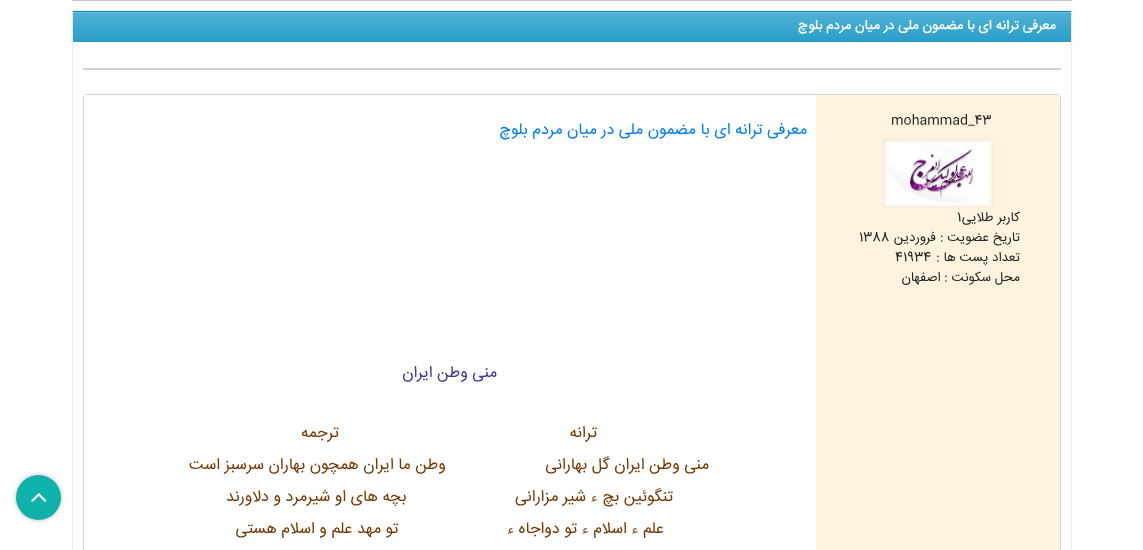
async function draw(canvas) {
	canvas.width = 1143;
	canvas.height = 550;
	const c = canvas.getContext('2d');
	c.miterLimit = 4;
	c.fontKerning = 'normal';
	async function loadImage(src) {
		const img = new Image();
		img.src = src;
		await img.decode();
		return img;
	}

	c.fillStyle = '#fff';
	c.fillRect(0, 0, 1143, 550);
	c.strokeStyle = '#c5c5c5';
	c.strokeRect(72.5, -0.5, 999, 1);
	c.strokeStyle = '#e9ecef';
	c.strokeRect(72.5, 10.5, 999, 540);
	c.drawImage(await loadImage('img1.png'), 73, 11, 998, 31);
	c.direction = 'rtl';
	c.font = '500 13.5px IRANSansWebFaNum';
	c.fillText('معرفی ترانه ای با مضمون ملی در میان مردم بلوچ', 1056, 29);
	c.fillStyle = '#d1cfcf';
	c.fillRect(83, 68, 978, 2);
	c.beginPath();
	c.roundRect(83.5, 94.5, 977, 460, 3.5);
	c.strokeStyle = '#ced4da';
	c.stroke();
	c.fillStyle = '#fff3e0';
	c.fillRect(816, 95, 244, 455);
	c.direction = 'ltr';
	c.font = '13.25px IRANSansWebFaNum';
	c.fillStyle = '#212529';
	c.fillText('mohammad_43', 891, 124);
	c.strokeStyle = '#eee';
	c.strokeRect(883.5, 139.5, 109, 68);
	c.drawImage(await loadImage('img2.png'), 886, 142, 104, 63);
	c.direction = 'rtl';
	c.fillText('کاربر طلایی', 1020, 221);
	c.direction = 'ltr';
	c.fillText('1', 957, 221);
	c.direction = 'rtl';
	c.fillText('تاریخ عضویت :', 1020, 241);
	c.fillText('فروردین', 936, 241);
	c.direction = 'ltr';
	c.fillText('1388', 859, 241);
	c.direction = 'rtl';
	c.fillText('تعداد پست ها :', 1020, 261);
	c.direction = 'ltr';
	c.fillText('41934', 895, 261);
	c.direction = 'rtl';
	c.fillText('محل سکونت : اصفهان', 1020, 281);
	c.fillStyle = '#fff';
	c.fillRect(84, 95, 3, 3);
	c.font = '16px IRANSansWebFaNum';
	c.fillStyle = '#007bff';
	c.fillText('معرفی ترانه ای با مضمون ملی در میان مردم بلوچ', 807, 134);
	c.fillStyle = '#373799';
	c.fillText('منی وطن ایران', 497, 377);
	c.fillStyle = '#753805';
	for (const [text, x, y] of [
		['ترانه                                                   ترجمه', 597, 437],
		['منی وطن ایران گل بهارانی                      وطن ما ایران همچون بهاران سرسبز است', 709, 469],
		['تنگوئین بچ ء شیر مزارانی                        بچه های او شیرمرد و دلاورند', 673, 501],
		['علم ء اسلام ء تو دواجاه ء                        تو مهد علم و اسلام هستی', 664, 533],
	]) {
		c.fillText(text, x, y);
	}
	c.fillStyle = '#bbb';
	c.filter = 'blur(2.5px)';
	c.beginPath();
	c.roundRect(16, 475, 45, 45, 22.5);
	c.fill();
	c.filter = 'none';
	c.fillStyle = '#0fb2aa';
	c.beginPath();
	c.arc(38.5, 497.5, 22.5, 0, 2 * Math.PI);
	c.fill();
	c.drawImage(await loadImage('img3.png'), 31, 493, 16, 9);
}

draw(document.querySelector('canvas'));
